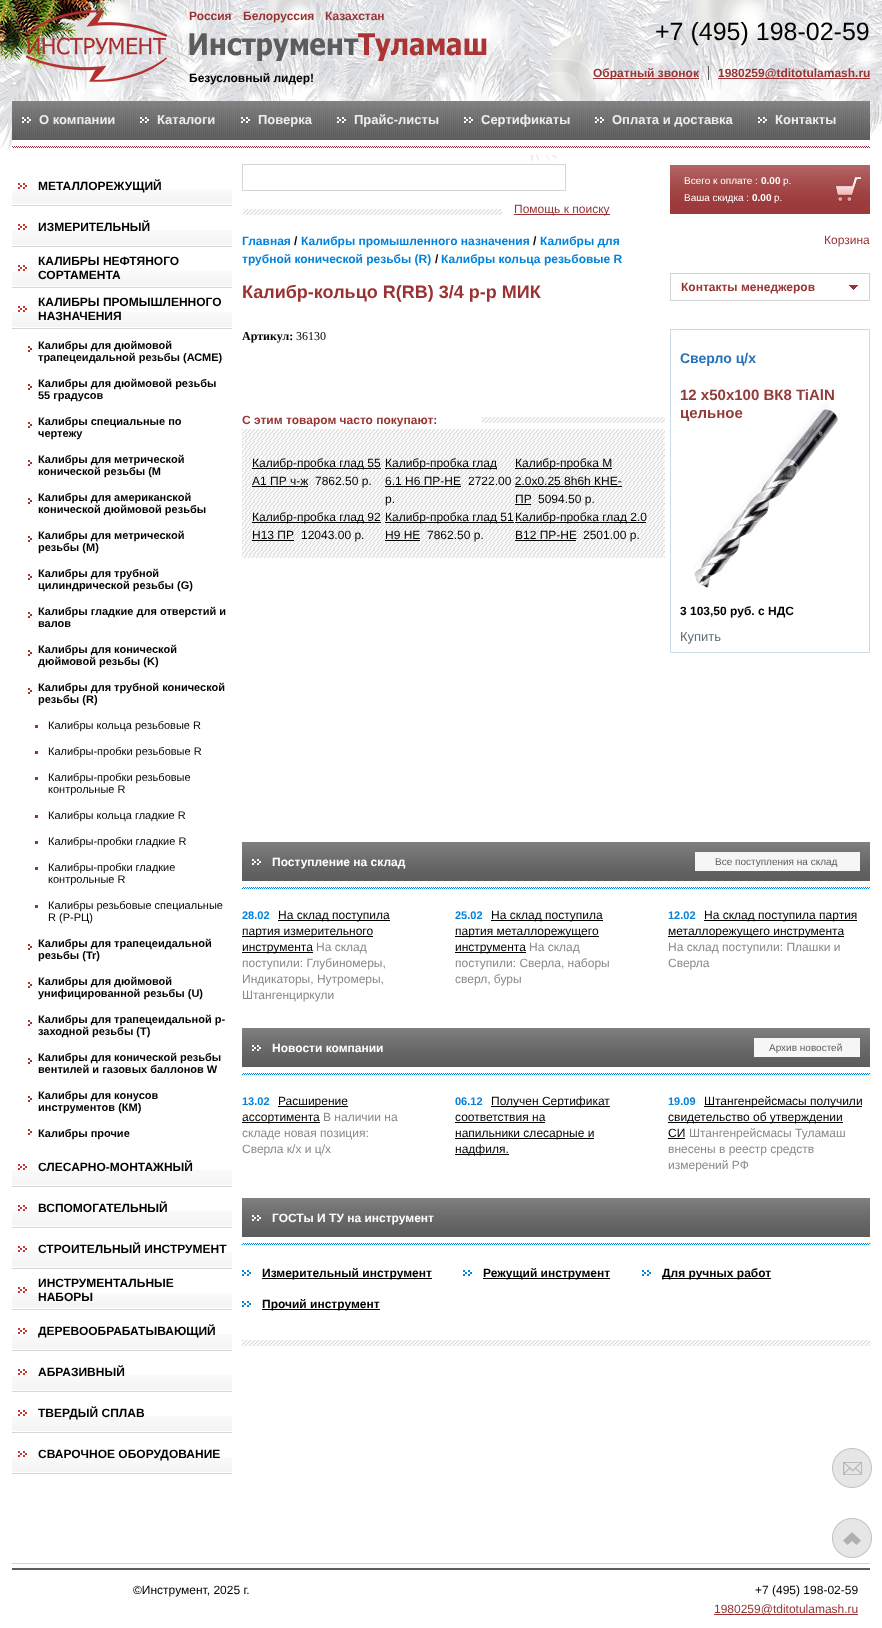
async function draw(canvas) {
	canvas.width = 882;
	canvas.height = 1628;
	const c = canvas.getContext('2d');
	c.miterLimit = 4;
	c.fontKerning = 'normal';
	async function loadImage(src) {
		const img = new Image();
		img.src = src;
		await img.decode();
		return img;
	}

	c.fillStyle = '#fff';
	c.fillRect(0, 0, 882, 1628);
	c.drawImage(await loadImage('img1.png'), 0, 0, 882, 165);
	c.drawImage(await loadImage('img2.png'), 0, 0, 115, 71);
	c.drawImage(await loadImage('img3.png'), 26, 10, 141, 72);
	c.font = 'bold 12px Liberation Sans';
	c.fillStyle = '#933';
	for (const [text, x, y] of [
		['Россия', 189, 20],
		['Белоруссия', 243, 20],
		['Казахстан', 325, 20],
	]) {
		c.fillText(text, x, y);
	}
	c.drawImage(await loadImage('img4.png'), 189, 33, 298, 28);
	c.fillStyle = '#000';
	c.fillText('Безусловный лидер!', 189, 82);
	c.font = '25px Liberation Sans';
	c.fillText('+7 (495) 198-02-59', 655, 40);
	c.fillStyle = '#5c5c5c';
	c.fillRect(708, 66, 1, 14);
	c.fillStyle = '#933';
	c.fillRect(593, 78, 106, 1);
	c.font = 'bold 12px Liberation Sans';
	c.fillText('Обратный звонок', 593, 77);
	c.fillRect(718, 78, 152, 1);
	c.fillText('1980259@tditotulamash.ru', 718, 77);
	c.drawImage(await loadImage('img5.png'), 12, 101, 858, 54);
	c.drawImage(await loadImage('img6.png'), 22, 117, 9, 6);
	c.font = 'bold 13px Liberation Sans';
	c.fillStyle = '#eee';
	c.fillText('О компании', 39, 124);
	c.drawImage(await loadImage('img6.png'), 140, 117, 9, 6);
	c.fillText('Каталоги', 157, 124);
	c.drawImage(await loadImage('img7.png'), 241, 117, 9, 6);
	c.fillText('Поверка', 258, 124);
	c.drawImage(await loadImage('img7.png'), 337, 117, 9, 6);
	c.fillText('Прайс-листы', 354, 124);
	c.drawImage(await loadImage('img6.png'), 464, 117, 9, 6);
	c.fillText('Сертификаты', 481, 124);
	c.drawImage(await loadImage('img7.png'), 595, 117, 9, 6);
	c.fillText('Оплата и доставка', 612, 124);
	c.drawImage(await loadImage('img6.png'), 758, 117, 9, 6);
	c.fillText('Контакты', 775, 124);
	c.drawImage(await loadImage('img8.png'), 12, 189, 220, 17);
	c.drawImage(await loadImage('img9.png'), 18, 183, 9, 6);
	c.font = 'bold 12px Liberation Sans';
	c.fillStyle = '#000';
	c.fillText('МЕТАЛЛОРЕЖУЩИЙ', 38, 190);
	c.drawImage(await loadImage('img8.png'), 12, 230, 220, 17);
	c.drawImage(await loadImage('img9.png'), 18, 224, 9, 6);
	c.fillText('ИЗМЕРИТЕЛЬНЫЙ', 38, 231);
	c.drawImage(await loadImage('img8.png'), 12, 271, 220, 17);
	c.drawImage(await loadImage('img9.png'), 18, 265, 9, 6);
	c.fillText('КАЛИБРЫ НЕФТЯНОГО', 38, 265);
	c.fillText('СОРТАМЕНТА', 38, 279);
	c.drawImage(await loadImage('img8.png'), 12, 312, 220, 17);
	c.drawImage(await loadImage('img9.png'), 18, 306, 9, 6);
	c.fillText('КАЛИБРЫ ПРОМЫШЛЕННОГО', 38, 306);
	c.fillText('НАЗНАЧЕНИЯ', 38, 320);
	c.drawImage(await loadImage('img10.png'), 28, 346, 4, 6);
	c.font = 'bold 11px Liberation Sans';
	c.fillText('Калибры для дюймовой', 38, 349);
	c.fillText('трапецеидальной резьбы (АСМЕ)', 38, 361);
	c.drawImage(await loadImage('img10.png'), 28, 384, 4, 6);
	c.fillText('Калибры для дюймовой резьбы', 38, 387);
	c.fillText('55 градусов', 38, 399);
	c.drawImage(await loadImage('img10.png'), 28, 422, 4, 6);
	c.fillText('Калибры специальные по', 38, 425);
	c.fillText('чертежу', 38, 437);
	c.drawImage(await loadImage('img10.png'), 28, 460, 4, 6);
	c.fillText('Калибры для метрической', 38, 463);
	c.fillText('конической резьбы (М', 38, 475);
	c.drawImage(await loadImage('img10.png'), 28, 498, 4, 6);
	c.fillText('Калибры для американской', 38, 501);
	c.fillText('конической дюймовой резьбы', 38, 513);
	c.drawImage(await loadImage('img10.png'), 28, 536, 4, 6);
	c.fillText('Калибры для метрической', 38, 539);
	c.fillText('резьбы (М)', 38, 551);
	c.drawImage(await loadImage('img10.png'), 28, 574, 4, 6);
	c.fillText('Калибры для трубной', 38, 577);
	c.fillText('цилиндрической резьбы (G)', 38, 589);
	c.drawImage(await loadImage('img10.png'), 28, 612, 4, 6);
	c.fillText('Калибры гладкие для отверстий и', 38, 615);
	c.fillText('валов', 38, 627);
	c.drawImage(await loadImage('img10.png'), 28, 650, 4, 6);
	c.fillText('Калибры для конической', 38, 653);
	c.fillText('дюймовой резьбы (K)', 38, 665);
	c.drawImage(await loadImage('img10.png'), 28, 688, 4, 6);
	c.fillText('Калибры для трубной конической', 38, 691);
	c.fillText('резьбы (R)', 38, 703);
	c.fillStyle = '#933';
	c.fillRect(35, 725, 3, 3);
	c.font = '11px Liberation Sans';
	c.fillStyle = '#000';
	c.fillText('Калибры кольца резьбовые R', 48, 729);
	c.fillStyle = '#933';
	c.fillRect(35, 751, 3, 3);
	c.fillStyle = '#000';
	c.fillText('Калибры-пробки резьбовые R', 48, 755);
	c.fillStyle = '#933';
	c.fillRect(35, 777, 3, 3);
	c.fillStyle = '#000';
	c.fillText('Калибры-пробки резьбовые', 48, 781);
	c.fillText('контрольные R', 48, 793);
	c.fillStyle = '#933';
	c.fillRect(35, 815, 3, 3);
	c.fillStyle = '#000';
	c.fillText('Калибры кольца гладкие R', 48, 819);
	c.fillStyle = '#933';
	c.fillRect(35, 841, 3, 3);
	c.fillStyle = '#000';
	c.fillText('Калибры-пробки гладкие R', 48, 845);
	c.fillStyle = '#933';
	c.fillRect(35, 867, 3, 3);
	c.fillStyle = '#000';
	c.fillText('Калибры-пробки гладкие', 48, 871);
	c.fillText('контрольные R', 48, 883);
	c.fillStyle = '#933';
	c.fillRect(35, 905, 3, 3);
	c.fillStyle = '#000';
	c.fillText('Калибры резьбовые специальные', 48, 909);
	c.fillText('R (P-РЦ)', 48, 921);
	c.drawImage(await loadImage('img10.png'), 28, 944, 4, 6);
	c.font = 'bold 11px Liberation Sans';
	c.fillText('Калибры для трапецеидальной', 38, 947);
	c.fillText('резьбы (Tr)', 38, 959);
	c.drawImage(await loadImage('img10.png'), 28, 982, 4, 6);
	c.fillText('Калибры для дюймовой', 38, 985);
	c.fillText('унифицированной резьбы (U)', 38, 997);
	c.drawImage(await loadImage('img10.png'), 28, 1020, 4, 6);
	c.fillText('Калибры для трапецеидальной p-', 38, 1023);
	c.fillText('заходной резьбы (T)', 38, 1035);
	c.drawImage(await loadImage('img10.png'), 28, 1058, 4, 6);
	c.fillText('Калибры для конической резьбы', 38, 1061);
	c.fillText('вентилей и газовых баллонов W', 38, 1073);
	c.drawImage(await loadImage('img10.png'), 28, 1096, 4, 6);
	c.fillText('Калибры для конусов', 38, 1099);
	c.fillText('инструментов (КМ)', 38, 1111);
	c.drawImage(await loadImage('img10.png'), 28, 1129, 4, 6);
	c.fillText('Калибры прочие', 38, 1137);
	c.drawImage(await loadImage('img8.png'), 12, 1170, 220, 17);
	c.drawImage(await loadImage('img9.png'), 18, 1164, 9, 6);
	c.font = 'bold 12px Liberation Sans';
	c.fillText('СЛЕСАРНО-МОНТАЖНЫЙ', 38, 1171);
	c.drawImage(await loadImage('img8.png'), 12, 1211, 220, 17);
	c.drawImage(await loadImage('img9.png'), 18, 1205, 9, 6);
	c.fillText('ВСПОМОГАТЕЛЬНЫЙ', 38, 1212);
	c.drawImage(await loadImage('img8.png'), 12, 1252, 220, 17);
	c.drawImage(await loadImage('img9.png'), 18, 1246, 9, 6);
	c.fillText('СТРОИТЕЛЬНЫЙ ИНСТРУМЕНТ', 38, 1253);
	c.drawImage(await loadImage('img8.png'), 12, 1293, 220, 17);
	c.drawImage(await loadImage('img9.png'), 18, 1287, 9, 6);
	c.fillText('ИНСТРУМЕНТАЛЬНЫЕ', 38, 1287);
	c.fillText('НАБОРЫ', 38, 1301);
	c.drawImage(await loadImage('img8.png'), 12, 1334, 220, 17);
	c.drawImage(await loadImage('img9.png'), 18, 1328, 9, 6);
	c.fillText('ДЕРЕВООБРАБАТЫВАЮЩИЙ', 38, 1335);
	c.drawImage(await loadImage('img8.png'), 12, 1375, 220, 17);
	c.drawImage(await loadImage('img9.png'), 18, 1369, 9, 6);
	c.fillText('АБРАЗИВНЫЙ', 38, 1376);
	c.drawImage(await loadImage('img8.png'), 12, 1416, 220, 17);
	c.drawImage(await loadImage('img9.png'), 18, 1410, 9, 6);
	c.fillText('ТВЕРДЫЙ СПЛАВ', 38, 1417);
	c.drawImage(await loadImage('img8.png'), 12, 1457, 220, 17);
	c.drawImage(await loadImage('img9.png'), 18, 1451, 9, 6);
	c.fillText('СВАРОЧНОЕ ОБОРУДОВАНИЕ', 38, 1458);
	c.strokeStyle = '#d5d5d5';
	c.strokeRect(242.5, 164.5, 323, 26);
	c.drawImage(await loadImage('img11.png'), 243, 209, 189, 6);
	c.drawImage(await loadImage('img12.png'), 432, 209, 70, 6);
	c.fillStyle = '#933';
	c.fillRect(514, 214, 96, 1);
	c.font = '12px Liberation Sans';
	c.fillText('Помощь к поиску', 514, 213);
	c.drawImage(await loadImage('img13.png'), 670, 165, 200, 49);
	c.font = '10px Liberation Sans';
	c.fillStyle = '#fff';
	c.fillText('Всего к оплате :', 684, 184);
	c.font = 'bold 10px Liberation Sans';
	c.fillText('0.00', 761, 184);
	c.font = '10px Liberation Sans';
	c.fillText('р.', 783, 184);
	c.fillText('Ваша скидка :', 684, 201);
	c.font = 'bold 10px Liberation Sans';
	c.fillText('0.00', 752, 201);
	c.font = '10px Liberation Sans';
	c.fillText('р.', 774, 201);
	c.drawImage(await loadImage('img14.png'), 834, 175, 28, 27);
	c.font = '12px Liberation Sans';
	c.fillStyle = '#933';
	c.fillText('Корзина', 824, 244);
	c.font = 'bold 12px Liberation Sans';
	c.fillStyle = '#0282dc';
	c.fillText('Главная', 242, 245);
	c.fillStyle = '#000';
	c.fillText('/', 294, 245);
	c.fillStyle = '#0282dc';
	c.fillText('Калибры промышленного назначения', 301, 245);
	c.fillStyle = '#000';
	c.fillText('/', 533, 245);
	c.fillStyle = '#0282dc';
	c.fillText('Калибры для', 540, 245);
	c.fillText('трубной конической резьбы (R)', 242, 263);
	c.fillStyle = '#000';
	c.fillText('/', 435, 263);
	c.fillStyle = '#0282dc';
	c.fillText('Калибры кольца резьбовые R', 441, 263);
	c.font = 'bold 18px Liberation Sans';
	c.fillStyle = '#933';
	c.fillText('Калибр-кольцо R(RB) 3/4 р-р МИК', 242, 298);
	c.font = 'bold 12px Liberation Serif';
	c.fillStyle = '#000';
	c.fillText('Артикул:', 242, 340);
	c.font = '12px Liberation Serif';
	c.fillText('36130', 296, 340);
	c.font = 'bold 12px Liberation Sans';
	c.fillStyle = '#933';
	c.fillText('С этим товаром часто покупают:', 242, 424);
	c.drawImage(await loadImage('img15.png'), 482, 417, 183, 6);
	c.drawImage(await loadImage('img16.png'), 242, 429, 423, 129);
	c.fillStyle = '#000';
	c.fillRect(252, 468, 129, 1);
	c.font = '12px Liberation Sans';
	c.fillText('Калибр-пробка глад 55', 252, 467);
	c.fillText('A1 ПР ч-ж', 252, 485);
	c.fillRect(252, 486, 56, 1);
	c.fillText('7862.50 р.', 315, 485);
	c.fillRect(385, 468, 112, 1);
	c.fillText('Калибр-пробка глад', 385, 467);
	c.fillText('6.1 Н6 ПР-НЕ', 385, 485);
	c.fillRect(385, 486, 76, 1);
	c.fillText('2722.00 2.0х0.25 8h6h КНЕ-', 468, 485);
	c.fillText('р.', 385, 503);
	c.fillRect(515, 468, 97, 1);
	c.fillText('Калибр-пробка М', 515, 467);
	c.fillText('ПР', 515, 503);
	c.fillRect(515, 486, 107, 1);
	c.fillRect(515, 504, 16, 1);
	c.fillText('5094.50 р.', 538, 503);
	c.fillRect(252, 522, 129, 1);
	c.fillText('Калибр-пробка глад 92', 252, 521);
	c.fillText('Н13 ПР', 252, 539);
	c.fillRect(252, 540, 42, 1);
	c.fillText('12043.00 р.', 301, 539);
	c.fillRect(385, 522, 129, 1);
	c.fillText('Калибр-пробка глад 51', 385, 521);
	c.fillText('Н9 НЕ', 385, 539);
	c.fillRect(385, 540, 35, 1);
	c.fillText('7862.50 р.', 427, 539);
	c.fillRect(515, 522, 131, 1);
	c.fillText('Калибр-пробка глад 2.0', 515, 521);
	c.fillText('B12 ПР-НЕ', 515, 539);
	c.fillRect(515, 540, 61, 1);
	c.fillText('2501.00 р.', 583, 539);
	c.strokeStyle = '#d3d3d3';
	c.strokeRect(670.5, 273.5, 199, 27);
	c.font = 'bold 12px Liberation Sans';
	c.fillStyle = '#933';
	c.fillText('Контакты менеджеров', 681, 291);
	c.drawImage(await loadImage('img17.png'), 849, 285, 9, 5);
	c.drawImage(await loadImage('img18.png'), 670, 329, 200, 324);
	c.font = 'bold 14px Liberation Sans';
	c.fillStyle = '#2771b8';
	c.fillText('Сверло ц/х', 680, 363);
	c.font = 'bold 15px Liberation Sans';
	c.fillStyle = '#913c39';
	c.fillText('12 х50х100 ВК8 TiAlN', 680, 400);
	c.fillText('цельное', 680, 418);
	c.font = 'bold 12px Liberation Sans';
	c.fillStyle = '#000';
	c.fillText('3 103,50 руб. с НДС', 680, 615);
	c.font = '13px Liberation Sans';
	c.fillStyle = '#5f6c75';
	c.fillText('Купить', 680, 641);
	c.drawImage(await loadImage('img19.png'), 242, 842, 628, 52);
	c.drawImage(await loadImage('img20.png'), 252, 859, 9, 6);
	c.font = 'bold 12px Liberation Sans';
	c.fillStyle = '#fff';
	c.fillText('Поступление на склад', 272, 866);
	c.fillStyle = '#f6f6f6';
	c.fillRect(695, 852, 165, 19);
	c.font = '10px Liberation Sans';
	c.fillStyle = '#5c5c5c';
	c.fillText('Все поступления на склад', 715, 865);
	c.font = 'bold 11px Liberation Sans';
	c.fillStyle = '#0282dc';
	c.fillText('28.02', 242, 919);
	c.fillStyle = '#000';
	c.fillRect(278, 920, 112, 1);
	c.font = '12px Liberation Sans';
	c.fillText('На склад поступила', 278, 919);
	c.fillRect(242, 936, 131, 1);
	c.fillText('партия измерительного', 242, 935);
	c.fillRect(242, 952, 71, 1);
	c.fillText('инструмента', 242, 951);
	c.fillStyle = '#898989';
	for (const [text, x, y] of [
		['На склад', 316, 951],
		['поступили: Глубиномеры,', 242, 967],
		['Индикаторы, Нутромеры,', 242, 983],
		['Штангенциркули', 242, 999],
	]) {
		c.fillText(text, x, y);
	}
	c.font = 'bold 11px Liberation Sans';
	c.fillStyle = '#0282dc';
	c.fillText('25.02', 455, 919);
	c.fillStyle = '#000';
	c.fillRect(491, 920, 112, 1);
	c.font = '12px Liberation Sans';
	c.fillText('На склад поступила', 491, 919);
	c.fillRect(455, 936, 144, 1);
	c.fillText('партия металлорежущего', 455, 935);
	c.fillRect(455, 952, 71, 1);
	c.fillText('инструмента', 455, 951);
	c.fillStyle = '#898989';
	for (const [text, x, y] of [
		['На склад', 529, 951],
		['поступили: Сверла, наборы', 455, 967],
		['сверл, буры', 455, 983],
	]) {
		c.fillText(text, x, y);
	}
	c.font = 'bold 11px Liberation Sans';
	c.fillStyle = '#0282dc';
	c.fillText('12.02', 668, 919);
	c.fillStyle = '#000';
	c.fillRect(704, 920, 153, 1);
	c.font = '12px Liberation Sans';
	c.fillText('На склад поступила партия', 704, 919);
	c.fillRect(668, 936, 176, 1);
	c.fillText('металлорежущего инструмента', 668, 935);
	c.fillStyle = '#898989';
	c.fillText('На склад поступили: Плашки и', 668, 951);
	c.fillText('Сверла', 668, 967);
	c.drawImage(await loadImage('img19.png'), 242, 1028, 628, 52);
	c.drawImage(await loadImage('img20.png'), 252, 1045, 9, 6);
	c.font = 'bold 12px Liberation Sans';
	c.fillStyle = '#fff';
	c.fillText('Новости компании', 272, 1052);
	c.fillStyle = '#f6f6f6';
	c.fillRect(754, 1038, 106, 19);
	c.font = '10px Liberation Sans';
	c.fillStyle = '#5c5c5c';
	c.fillText('Архив новостей', 769, 1051);
	c.font = 'bold 11px Liberation Sans';
	c.fillStyle = '#0282dc';
	c.fillText('13.02', 242, 1105);
	c.fillStyle = '#000';
	c.fillRect(278, 1106, 70, 1);
	c.font = '12px Liberation Sans';
	c.fillText('Расширение', 278, 1105);
	c.fillRect(242, 1122, 78, 1);
	c.fillText('ассортимента', 242, 1121);
	c.fillStyle = '#898989';
	for (const [text, x, y] of [
		['В наличии на', 323, 1121],
		['складе новая позиция:', 242, 1137],
		['Сверла к/х и ц/х', 242, 1153],
	]) {
		c.fillText(text, x, y);
	}
	c.font = 'bold 11px Liberation Sans';
	c.fillStyle = '#0282dc';
	c.fillText('06.12', 455, 1105);
	c.fillStyle = '#000';
	c.fillRect(491, 1106, 119, 1);
	c.font = '12px Liberation Sans';
	c.fillText('Получен Сертификат', 491, 1105);
	c.fillText('соответствия на', 455, 1121);
	c.fillRect(455, 1122, 90, 1);
	c.fillRect(455, 1138, 139, 1);
	c.fillText('напильники слесарные и', 455, 1137);
	c.fillRect(455, 1154, 54, 1);
	c.fillText('надфиля.', 455, 1153);
	c.font = 'bold 11px Liberation Sans';
	c.fillStyle = '#0282dc';
	c.fillText('19.09', 668, 1105);
	c.fillStyle = '#000';
	c.fillRect(704, 1106, 158, 1);
	c.font = '12px Liberation Sans';
	c.fillText('Штангенрейсмасы получили', 704, 1105);
	c.fillRect(668, 1122, 175, 1);
	c.fillText('свидетельство об утверждении', 668, 1121);
	c.fillText('СИ', 668, 1137);
	c.fillRect(668, 1138, 17, 1);
	c.fillStyle = '#898989';
	for (const [text, x, y] of [
		['Штангенрейсмасы Туламаш', 689, 1137],
		['внесены в реестр средств', 668, 1153],
		['измерений РФ', 668, 1169],
	]) {
		c.fillText(text, x, y);
	}
	c.drawImage(await loadImage('img19.png'), 242, 1198, 628, 52);
	c.drawImage(await loadImage('img20.png'), 252, 1215, 9, 6);
	c.font = 'bold 12px Liberation Sans';
	c.fillStyle = '#fff';
	c.fillText('ГОСТы И ТУ на инструмент', 272, 1222);
	c.drawImage(await loadImage('img21.png'), 242, 1270, 9, 6);
	c.fillStyle = '#000';
	c.fillRect(262, 1278, 170, 1);
	c.fillText('Измерительный инструмент', 262, 1277);
	c.drawImage(await loadImage('img21.png'), 463, 1270, 9, 6);
	c.fillRect(483, 1278, 127, 1);
	c.fillText('Режущий инструмент', 483, 1277);
	c.drawImage(await loadImage('img21.png'), 642, 1270, 9, 6);
	c.fillRect(662, 1278, 109, 1);
	c.fillText('Для ручных работ', 662, 1277);
	c.drawImage(await loadImage('img21.png'), 242, 1301, 9, 6);
	c.fillRect(262, 1309, 118, 1);
	c.fillText('Прочий инструмент', 262, 1308);
	c.drawImage(await loadImage('img22.png'), 242, 1340, 628, 6);
	c.drawImage(await loadImage('img23.png'), 832, 1448, 40, 40);
	c.drawImage(await loadImage('img24.png'), 832, 1518, 40, 40);
	c.drawImage(await loadImage('img25.png'), 12, 1563, 858, 7);
	c.font = '12px Liberation Sans';
	c.fillText('©Инструмент, 2025 г.', 133, 1594);
	c.fillText('+7 (495) 198-02-59', 755, 1594);
	c.fillStyle = '#933';
	c.fillRect(714, 1614, 144, 1);
	c.fillText('1980259@tditotulamash.ru', 714, 1613);
}

draw(document.querySelector('canvas'));
